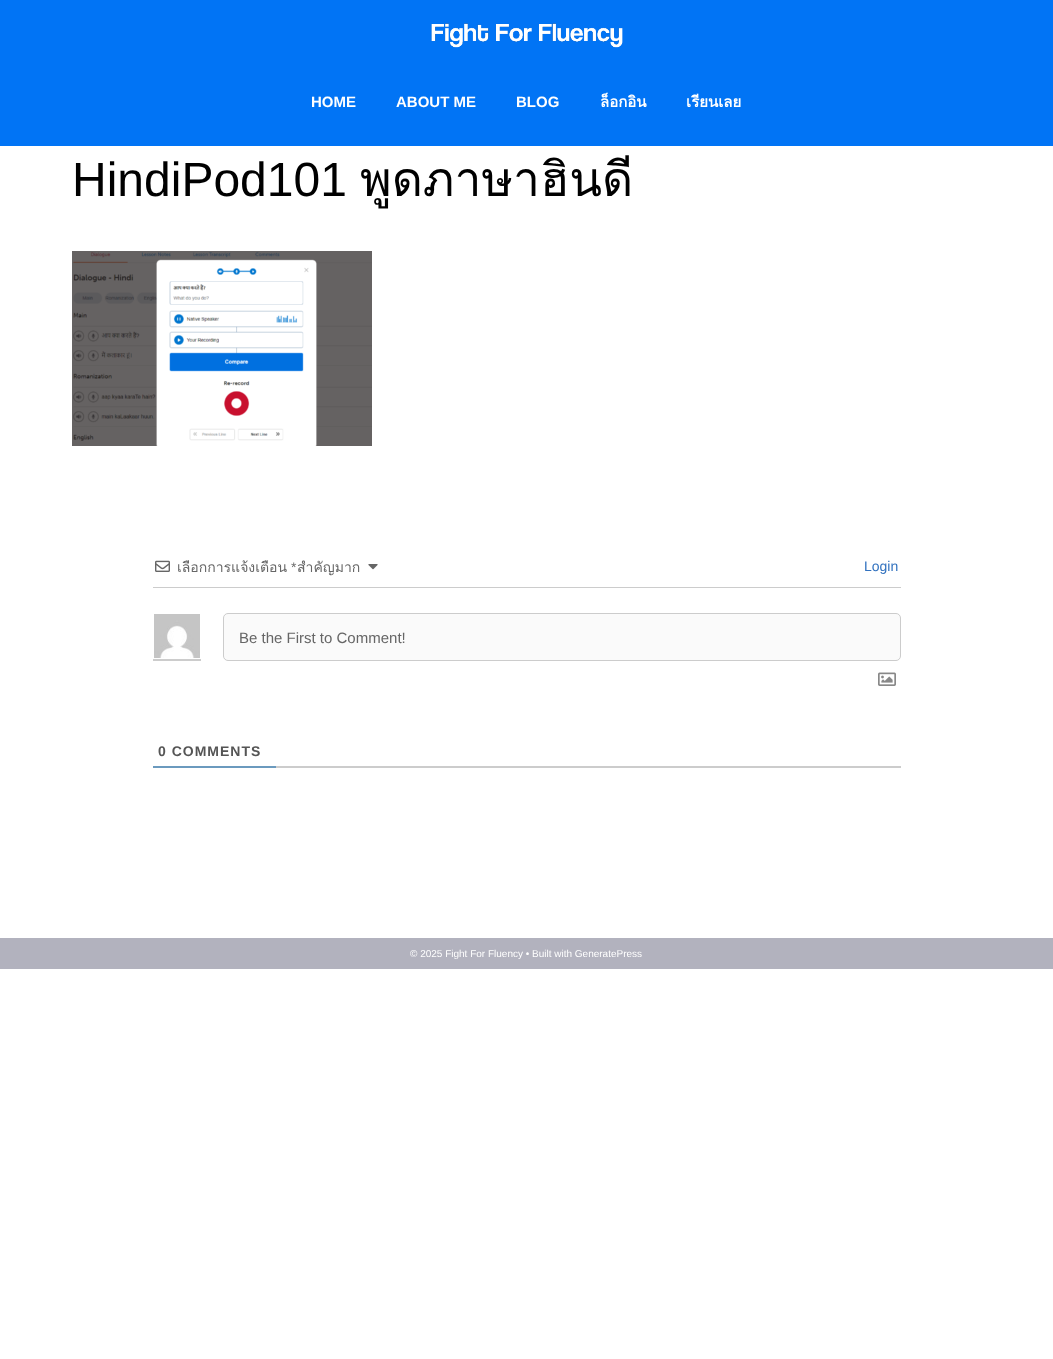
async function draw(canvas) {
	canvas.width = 1053;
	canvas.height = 1359;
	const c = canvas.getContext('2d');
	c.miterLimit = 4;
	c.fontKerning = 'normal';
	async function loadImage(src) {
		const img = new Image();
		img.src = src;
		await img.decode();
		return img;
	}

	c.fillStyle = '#fff';
	c.fillRect(0, 0, 1053, 1359);
	c.fillStyle = '#0174f5';
	c.fillRect(0, 0, 1053, 146);
	c.drawImage(await loadImage('img1.png'), 431, 23, 192, 25);
	c.font = 'bold 15px Liberation Sans';
	c.fillStyle = '#fff';
	for (const [text, x, y] of [
		['HOME', 311, 107],
		['ABOUT ME', 396, 107],
		['BLOG', 516, 107],
	]) {
		c.fillText(text, x, y);
	}
	c.font = 'bold 15px Loma';
	c.fillText('ล็อกอิน', 600, 107);
	c.fillText('เรียนเลย', 686, 107);
	c.font = '48px Liberation Sans';
	c.fillStyle = '#000';
	c.fillText('HindiPod101', 72, 196);
	c.font = '48px Loma';
	c.fillText('พูดภาษาฮินดี', 360, 196);
	c.drawImage(await loadImage('img2.png'), 72, 251, 300, 195);
	c.fillStyle = '#ccc';
	c.fillRect(153, 587, 748, 1);
	c.drawImage(await loadImage('img3.png'), 155, 560, 15, 12);
	c.font = '14px Loma';
	c.fillStyle = '#666';
	c.fillText('เลือกการแจ้งเตือน', 177, 572);
	c.font = '14px Liberation Sans';
	c.fillText('*', 291, 572);
	c.font = '14px Loma';
	c.fillText('สำคัญมาก', 297, 572);
	c.drawImage(await loadImage('img4.png'), 368, 564, 10, 6);
	c.font = '14px Liberation Sans';
	c.fillStyle = '#3272bf';
	c.fillText('Login', 864, 571);
	c.drawImage(await loadImage('img5.png'), 154, 614, 46, 44);
	c.fillStyle = '#ccc';
	c.fillRect(153, 659, 48, 2);
	c.fillStyle = '#fafafa';
	c.beginPath();
	c.roundRect(223.5, 613.5, 677, 47, 4.5);
	c.fill();
	c.strokeStyle = '#ccc';
	c.stroke();
	c.font = '15px Liberation Sans';
	c.fillStyle = '#666';
	c.fillText('Be the First to Comment!', 239, 643);
	c.drawImage(await loadImage('img6.png'), 878, 672, 18, 14);
	c.fillStyle = '#ccc';
	c.fillRect(276, 766, 625, 2);
	c.fillStyle = '#6b9abe';
	c.fillRect(153, 766, 123, 2);
	c.letterSpacing = '1px';
	c.font = 'bold 14px Liberation Sans';
	c.fillStyle = '#555';
	c.fillText('0 COMMENTS', 158, 756);
	c.fillStyle = '#b2b2be';
	c.fillRect(0, 938, 1053, 31);
	c.letterSpacing = '0px';
	c.font = '10px Liberation Sans';
	c.fillStyle = '#fff';
	c.fillText('© 2025 Fight For Fluency • Built with GeneratePress', 410, 957);
}

draw(document.querySelector('canvas'));
